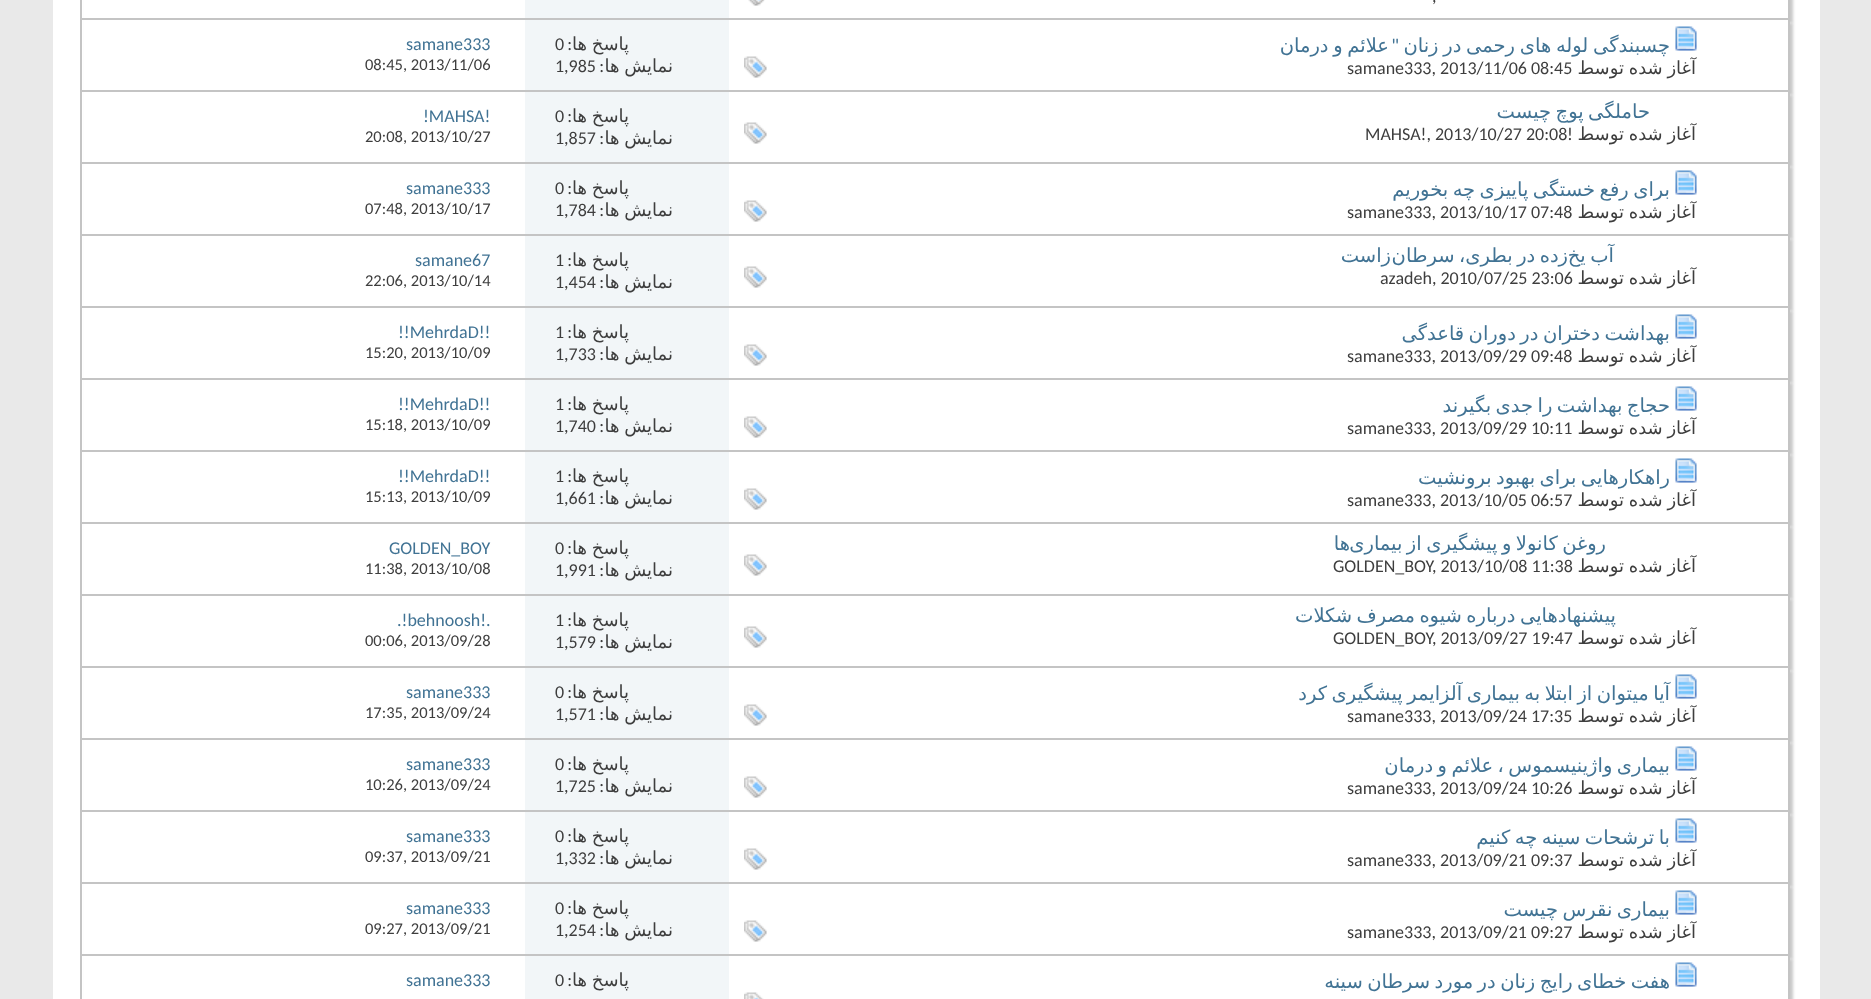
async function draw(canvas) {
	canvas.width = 1871;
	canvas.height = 999;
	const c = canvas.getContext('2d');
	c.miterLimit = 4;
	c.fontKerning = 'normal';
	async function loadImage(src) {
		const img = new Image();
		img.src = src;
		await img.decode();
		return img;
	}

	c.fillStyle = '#e9e9e9';
	c.fillRect(0, 0, 1871, 999);
	c.fillStyle = '#fff';
	c.fillRect(53, 0, 1767, 999);
	c.fillStyle = '#c8c8c8';
	c.filter = 'blur(1.5px)';
	c.beginPath();
	c.rect(86, -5, 1707, 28);
	c.fill();
	c.filter = 'none';
	for (const [x, y, w, h, color] of [
		[84, 0, 1704, 18, '#fff'],
		[1788, 0, 2, 20, '#c4c4c4'],
		[80, 18, 1710, 2, '#c4c4c4'],
		[80, 0, 2, 20, '#c4c4c4'],
	]) {
		c.fillStyle = color;
		c.fillRect(x, y, w, h);
	}
	c.font = '18px Carlito';
	c.fillStyle = '#3e3e3e';
	c.fillText(',', 1432, 2);
	c.drawImage(await loadImage('img1.png'), 748, 0, 17, 6);
	c.fillStyle = '#f2f6f8';
	c.fillRect(525, 0, 204, 18);
	c.fillStyle = '#c8c8c8';
	c.filter = 'blur(1.5px)';
	c.beginPath();
	c.rect(86, 23, 1707, 72);
	c.fill();
	c.filter = 'none';
	for (const [x, y, w, h, color] of [
		[84, 20, 1704, 70, '#fff'],
		[1788, 20, 2, 72, '#c4c4c4'],
		[80, 90, 1710, 2, '#c4c4c4'],
		[80, 20, 2, 72, '#c4c4c4'],
	]) {
		c.fillStyle = color;
		c.fillRect(x, y, w, h);
	}
	c.drawImage(await loadImage('img2.png'), 1675, 26, 22, 25);
	c.wordSpacing = '-1.5px';
	c.direction = 'rtl';
	c.font = '19.5px DejaVu Sans';
	c.fillStyle = '#417394';
	c.fillText('چسبندگی لوله های رحمی در زنان', 1670, 52);
	c.wordSpacing = '0px';
	c.font = '19.5px Carlito';
	c.fillText('"', 1399, 52);
	c.wordSpacing = '-1.5px';
	c.font = '19.5px DejaVu Sans';
	c.fillText('علائم و درمان', 1389, 52);
	c.wordSpacing = '-1px';
	c.font = '18px DejaVu Sans';
	c.fillStyle = '#3e3e3e';
	c.fillText('آغاز شده توسط', 1696, 74);
	c.wordSpacing = '0px';
	c.direction = 'ltr';
	c.font = '18px Carlito';
	c.fillText('samane333, 2013/11/06 08:45', 1347, 74);
	c.drawImage(await loadImage('img3.png'), 744, 56, 23, 22);
	c.fillStyle = '#f2f6f8';
	c.fillRect(525, 20, 204, 70);
	c.wordSpacing = '-1px';
	c.direction = 'rtl';
	c.font = '18px DejaVu Sans';
	c.fillStyle = '#3e3e3e';
	c.fillText('پاسخ ها', 629, 50);
	c.wordSpacing = '0px';
	c.font = '18px Carlito';
	c.fillText(':', 572, 50);
	c.direction = 'ltr';
	c.fillText('0', 555, 50);
	c.wordSpacing = '-1px';
	c.direction = 'rtl';
	c.font = '18px DejaVu Sans';
	c.fillText('نمایش ها', 673, 72);
	c.wordSpacing = '0px';
	c.font = '18px Carlito';
	c.fillText(':', 604, 72);
	c.direction = 'ltr';
	c.fillText('1,985', 555, 72);
	c.fillStyle = '#417394';
	c.fillText('samane333', 406, 50);
	c.font = '16.5px Carlito';
	c.fillStyle = '#3e3e3e';
	c.fillText(', 2013/11/06', 403, 70);
	c.fillText('08:45', 365, 70);
	c.fillStyle = '#c8c8c8';
	c.filter = 'blur(1.5px)';
	c.beginPath();
	c.rect(86, 95, 1707, 72);
	c.fill();
	c.filter = 'none';
	for (const [x, y, w, h, color] of [
		[84, 92, 1704, 70, '#fff'],
		[1788, 92, 2, 72, '#c4c4c4'],
		[80, 162, 1710, 2, '#c4c4c4'],
		[80, 92, 2, 72, '#c4c4c4'],
	]) {
		c.fillStyle = color;
		c.fillRect(x, y, w, h);
	}
	c.wordSpacing = '-1.75px';
	c.direction = 'rtl';
	c.font = '19.5px DejaVu Sans';
	c.fillStyle = '#417394';
	c.fillText('حاملگی پوچ چیست', 1650, 118);
	c.wordSpacing = '-1px';
	c.font = '18px DejaVu Sans';
	c.fillStyle = '#3e3e3e';
	c.fillText('آغاز شده توسط', 1696, 140);
	c.wordSpacing = '0px';
	c.direction = 'ltr';
	c.font = '18px Carlito';
	c.fillText('!', 1567, 140);
	c.fillText('MAHSA!, 2013/10/27 20:08', 1365, 140);
	c.drawImage(await loadImage('img3.png'), 744, 122, 23, 22);
	c.fillStyle = '#f2f6f8';
	c.fillRect(525, 92, 204, 70);
	c.wordSpacing = '-1px';
	c.direction = 'rtl';
	c.font = '18px DejaVu Sans';
	c.fillStyle = '#3e3e3e';
	c.fillText('پاسخ ها', 629, 122);
	c.wordSpacing = '0px';
	c.font = '18px Carlito';
	c.fillText(':', 572, 122);
	c.direction = 'ltr';
	c.fillText('0', 555, 122);
	c.wordSpacing = '-1px';
	c.direction = 'rtl';
	c.font = '18px DejaVu Sans';
	c.fillText('نمایش ها', 673, 144);
	c.wordSpacing = '0px';
	c.font = '18px Carlito';
	c.fillText(':', 604, 144);
	c.direction = 'ltr';
	c.fillText('1,857', 555, 144);
	c.fillStyle = '#417394';
	c.fillText('!MAHSA!', 423, 122);
	c.font = '16.5px Carlito';
	c.fillStyle = '#3e3e3e';
	c.fillText(', 2013/10/27', 403, 142);
	c.fillText('20:08', 365, 142);
	c.fillStyle = '#c8c8c8';
	c.filter = 'blur(1.5px)';
	c.beginPath();
	c.rect(86, 167, 1707, 72);
	c.fill();
	c.filter = 'none';
	for (const [x, y, w, h, color] of [
		[84, 164, 1704, 70, '#fff'],
		[1788, 164, 2, 72, '#c4c4c4'],
		[80, 234, 1710, 2, '#c4c4c4'],
		[80, 164, 2, 72, '#c4c4c4'],
	]) {
		c.fillStyle = color;
		c.fillRect(x, y, w, h);
	}
	c.drawImage(await loadImage('img2.png'), 1675, 170, 22, 25);
	c.wordSpacing = '-1.75px';
	c.direction = 'rtl';
	c.font = '19.5px DejaVu Sans';
	c.fillStyle = '#417394';
	c.fillText('برای رفع خستگی پاییزی چه بخوریم', 1670, 196);
	c.wordSpacing = '-1px';
	c.font = '18px DejaVu Sans';
	c.fillStyle = '#3e3e3e';
	c.fillText('آغاز شده توسط', 1696, 218);
	c.wordSpacing = '0px';
	c.direction = 'ltr';
	c.font = '18px Carlito';
	c.fillText('samane333, 2013/10/17 07:48', 1347, 218);
	c.drawImage(await loadImage('img3.png'), 744, 200, 23, 22);
	c.fillStyle = '#f2f6f8';
	c.fillRect(525, 164, 204, 70);
	c.wordSpacing = '-1px';
	c.direction = 'rtl';
	c.font = '18px DejaVu Sans';
	c.fillStyle = '#3e3e3e';
	c.fillText('پاسخ ها', 629, 194);
	c.wordSpacing = '0px';
	c.font = '18px Carlito';
	c.fillText(':', 572, 194);
	c.direction = 'ltr';
	c.fillText('0', 555, 194);
	c.wordSpacing = '-1px';
	c.direction = 'rtl';
	c.font = '18px DejaVu Sans';
	c.fillText('نمایش ها', 673, 216);
	c.wordSpacing = '0px';
	c.font = '18px Carlito';
	c.fillText(':', 604, 216);
	c.direction = 'ltr';
	c.fillText('1,784', 555, 216);
	c.fillStyle = '#417394';
	c.fillText('samane333', 406, 194);
	c.font = '16.5px Carlito';
	c.fillStyle = '#3e3e3e';
	c.fillText(', 2013/10/17', 403, 214);
	c.fillText('07:48', 365, 214);
	c.fillStyle = '#c8c8c8';
	c.filter = 'blur(1.5px)';
	c.beginPath();
	c.rect(86, 239, 1707, 72);
	c.fill();
	c.filter = 'none';
	for (const [x, y, w, h, color] of [
		[84, 236, 1704, 70, '#fff'],
		[1788, 236, 2, 72, '#c4c4c4'],
		[80, 306, 1710, 2, '#c4c4c4'],
		[80, 236, 2, 72, '#c4c4c4'],
	]) {
		c.fillStyle = color;
		c.fillRect(x, y, w, h);
	}
	c.wordSpacing = '-1.75px';
	c.direction = 'rtl';
	c.font = '19.5px DejaVu Sans';
	c.fillStyle = '#417394';
	c.fillText('آب یخ', 1614, 262);
	c.fillText('زده در بطری، سرطان', 1568, 262);
	c.wordSpacing = '0px';
	c.fillText('زاست', 1391, 262);
	c.wordSpacing = '-1px';
	c.font = '18px DejaVu Sans';
	c.fillStyle = '#3e3e3e';
	c.fillText('آغاز شده توسط', 1696, 284);
	c.wordSpacing = '0px';
	c.direction = 'ltr';
	c.font = '18px Carlito';
	c.fillText('azadeh, 2010/07/25 23:06', 1380, 284);
	c.drawImage(await loadImage('img3.png'), 744, 266, 23, 22);
	c.fillStyle = '#f2f6f8';
	c.fillRect(525, 236, 204, 70);
	c.wordSpacing = '-1px';
	c.direction = 'rtl';
	c.font = '18px DejaVu Sans';
	c.fillStyle = '#3e3e3e';
	c.fillText('پاسخ ها', 629, 266);
	c.wordSpacing = '0px';
	c.font = '18px Carlito';
	c.fillText(':', 572, 266);
	c.direction = 'ltr';
	c.fillText('1', 555, 266);
	c.wordSpacing = '-1px';
	c.direction = 'rtl';
	c.font = '18px DejaVu Sans';
	c.fillText('نمایش ها', 673, 288);
	c.wordSpacing = '0px';
	c.font = '18px Carlito';
	c.fillText(':', 604, 288);
	c.direction = 'ltr';
	c.fillText('1,454', 555, 288);
	c.fillStyle = '#417394';
	c.fillText('samane67', 415, 266);
	c.font = '16.5px Carlito';
	c.fillStyle = '#3e3e3e';
	c.fillText(', 2013/10/14', 403, 286);
	c.fillText('22:06', 365, 286);
	c.fillStyle = '#c8c8c8';
	c.filter = 'blur(1.5px)';
	c.beginPath();
	c.rect(86, 311, 1707, 72);
	c.fill();
	c.filter = 'none';
	for (const [x, y, w, h, color] of [
		[84, 308, 1704, 70, '#fff'],
		[1788, 308, 2, 72, '#c4c4c4'],
		[80, 378, 1710, 2, '#c4c4c4'],
		[80, 308, 2, 72, '#c4c4c4'],
	]) {
		c.fillStyle = color;
		c.fillRect(x, y, w, h);
	}
	c.drawImage(await loadImage('img2.png'), 1675, 314, 22, 25);
	c.wordSpacing = '-1.75px';
	c.direction = 'rtl';
	c.font = '19.5px DejaVu Sans';
	c.fillStyle = '#417394';
	c.fillText('بهداشت دختران در دوران قاعدگی', 1670, 340);
	c.wordSpacing = '-1px';
	c.font = '18px DejaVu Sans';
	c.fillStyle = '#3e3e3e';
	c.fillText('آغاز شده توسط', 1696, 362);
	c.wordSpacing = '0px';
	c.direction = 'ltr';
	c.font = '18px Carlito';
	c.fillText('samane333, 2013/09/29 09:48', 1347, 362);
	c.drawImage(await loadImage('img3.png'), 744, 344, 23, 22);
	c.fillStyle = '#f2f6f8';
	c.fillRect(525, 308, 204, 70);
	c.wordSpacing = '-1px';
	c.direction = 'rtl';
	c.font = '18px DejaVu Sans';
	c.fillStyle = '#3e3e3e';
	c.fillText('پاسخ ها', 629, 338);
	c.wordSpacing = '0px';
	c.font = '18px Carlito';
	c.fillText(':', 572, 338);
	c.direction = 'ltr';
	c.fillText('1', 555, 338);
	c.wordSpacing = '-1px';
	c.direction = 'rtl';
	c.font = '18px DejaVu Sans';
	c.fillText('نمایش ها', 673, 360);
	c.wordSpacing = '0px';
	c.font = '18px Carlito';
	c.fillText(':', 604, 360);
	c.direction = 'ltr';
	c.fillText('1,733', 555, 360);
	c.fillStyle = '#417394';
	c.fillText('!!MehrdaD!!', 398, 338);
	c.font = '16.5px Carlito';
	c.fillStyle = '#3e3e3e';
	c.fillText(', 2013/10/09', 403, 358);
	c.fillText('15:20', 365, 358);
	c.fillStyle = '#c8c8c8';
	c.filter = 'blur(1.5px)';
	c.beginPath();
	c.rect(86, 383, 1707, 72);
	c.fill();
	c.filter = 'none';
	for (const [x, y, w, h, color] of [
		[84, 380, 1704, 70, '#fff'],
		[1788, 380, 2, 72, '#c4c4c4'],
		[80, 450, 1710, 2, '#c4c4c4'],
		[80, 380, 2, 72, '#c4c4c4'],
	]) {
		c.fillStyle = color;
		c.fillRect(x, y, w, h);
	}
	c.drawImage(await loadImage('img2.png'), 1675, 386, 22, 25);
	c.wordSpacing = '-1.75px';
	c.direction = 'rtl';
	c.font = '19.5px DejaVu Sans';
	c.fillStyle = '#417394';
	c.fillText('حجاج بهداشت را جدی بگیرند', 1670, 412);
	c.wordSpacing = '-1px';
	c.font = '18px DejaVu Sans';
	c.fillStyle = '#3e3e3e';
	c.fillText('آغاز شده توسط', 1696, 434);
	c.wordSpacing = '0px';
	c.direction = 'ltr';
	c.font = '18px Carlito';
	c.fillText('samane333, 2013/09/29 10:11', 1347, 434);
	c.drawImage(await loadImage('img3.png'), 744, 416, 23, 22);
	c.fillStyle = '#f2f6f8';
	c.fillRect(525, 380, 204, 70);
	c.wordSpacing = '-1px';
	c.direction = 'rtl';
	c.font = '18px DejaVu Sans';
	c.fillStyle = '#3e3e3e';
	c.fillText('پاسخ ها', 629, 410);
	c.wordSpacing = '0px';
	c.font = '18px Carlito';
	c.fillText(':', 572, 410);
	c.direction = 'ltr';
	c.fillText('1', 555, 410);
	c.wordSpacing = '-1px';
	c.direction = 'rtl';
	c.font = '18px DejaVu Sans';
	c.fillText('نمایش ها', 673, 432);
	c.wordSpacing = '0px';
	c.font = '18px Carlito';
	c.fillText(':', 604, 432);
	c.direction = 'ltr';
	c.fillText('1,740', 555, 432);
	c.fillStyle = '#417394';
	c.fillText('!!MehrdaD!!', 398, 410);
	c.font = '16.5px Carlito';
	c.fillStyle = '#3e3e3e';
	c.fillText(', 2013/10/09', 403, 430);
	c.fillText('15:18', 365, 430);
	c.fillStyle = '#c8c8c8';
	c.filter = 'blur(1.5px)';
	c.beginPath();
	c.rect(86, 455, 1707, 72);
	c.fill();
	c.filter = 'none';
	for (const [x, y, w, h, color] of [
		[84, 452, 1704, 70, '#fff'],
		[1788, 452, 2, 72, '#c4c4c4'],
		[80, 522, 1710, 2, '#c4c4c4'],
		[80, 452, 2, 72, '#c4c4c4'],
	]) {
		c.fillStyle = color;
		c.fillRect(x, y, w, h);
	}
	c.drawImage(await loadImage('img2.png'), 1675, 458, 22, 25);
	c.wordSpacing = '-1.75px';
	c.direction = 'rtl';
	c.font = '19.5px DejaVu Sans';
	c.fillStyle = '#417394';
	c.fillText('راهکارهایی برای بهبود برونشیت', 1670, 484);
	c.wordSpacing = '-1px';
	c.font = '18px DejaVu Sans';
	c.fillStyle = '#3e3e3e';
	c.fillText('آغاز شده توسط', 1696, 506);
	c.wordSpacing = '0px';
	c.direction = 'ltr';
	c.font = '18px Carlito';
	c.fillText('samane333, 2013/10/05 06:57', 1347, 506);
	c.drawImage(await loadImage('img3.png'), 744, 488, 23, 22);
	c.fillStyle = '#f2f6f8';
	c.fillRect(525, 452, 204, 70);
	c.wordSpacing = '-1px';
	c.direction = 'rtl';
	c.font = '18px DejaVu Sans';
	c.fillStyle = '#3e3e3e';
	c.fillText('پاسخ ها', 629, 482);
	c.wordSpacing = '0px';
	c.font = '18px Carlito';
	c.fillText(':', 572, 482);
	c.direction = 'ltr';
	c.fillText('1', 555, 482);
	c.wordSpacing = '-1px';
	c.direction = 'rtl';
	c.font = '18px DejaVu Sans';
	c.fillText('نمایش ها', 673, 504);
	c.wordSpacing = '0px';
	c.font = '18px Carlito';
	c.fillText(':', 604, 504);
	c.direction = 'ltr';
	c.fillText('1,661', 555, 504);
	c.fillStyle = '#417394';
	c.fillText('!!MehrdaD!!', 398, 482);
	c.font = '16.5px Carlito';
	c.fillStyle = '#3e3e3e';
	c.fillText(', 2013/10/09', 403, 502);
	c.fillText('15:13', 365, 502);
	c.fillStyle = '#c8c8c8';
	c.filter = 'blur(1.5px)';
	c.beginPath();
	c.rect(86, 527, 1707, 72);
	c.fill();
	c.filter = 'none';
	for (const [x, y, w, h, color] of [
		[84, 524, 1704, 70, '#fff'],
		[1788, 524, 2, 72, '#c4c4c4'],
		[80, 594, 1710, 2, '#c4c4c4'],
		[80, 524, 2, 72, '#c4c4c4'],
	]) {
		c.fillStyle = color;
		c.fillRect(x, y, w, h);
	}
	c.wordSpacing = '-1.75px';
	c.direction = 'rtl';
	c.font = '19.5px DejaVu Sans';
	c.fillStyle = '#417394';
	c.fillText('روغن کانولا و پیشگیری از بیماری', 1606, 550);
	c.wordSpacing = '0px';
	c.fillText('ها', 1350, 550);
	c.wordSpacing = '-1px';
	c.font = '18px DejaVu Sans';
	c.fillStyle = '#3e3e3e';
	c.fillText('آغاز شده توسط', 1696, 572);
	c.wordSpacing = '0px';
	c.direction = 'ltr';
	c.font = '18px Carlito';
	c.fillText('GOLDEN_BOY', 1333, 572);
	c.fillText(', 2013/10/08 11:38', 1432, 572);
	c.drawImage(await loadImage('img3.png'), 744, 554, 23, 22);
	c.fillStyle = '#f2f6f8';
	c.fillRect(525, 524, 204, 70);
	c.wordSpacing = '-1px';
	c.direction = 'rtl';
	c.font = '18px DejaVu Sans';
	c.fillStyle = '#3e3e3e';
	c.fillText('پاسخ ها', 629, 554);
	c.wordSpacing = '0px';
	c.font = '18px Carlito';
	c.fillText(':', 572, 554);
	c.direction = 'ltr';
	c.fillText('0', 555, 554);
	c.wordSpacing = '-1px';
	c.direction = 'rtl';
	c.font = '18px DejaVu Sans';
	c.fillText('نمایش ها', 673, 576);
	c.wordSpacing = '0px';
	c.font = '18px Carlito';
	c.fillText(':', 604, 576);
	c.direction = 'ltr';
	c.fillText('1,991', 555, 576);
	c.fillStyle = '#417394';
	c.fillText('GOLDEN_BOY', 389, 554);
	c.font = '16.5px Carlito';
	c.fillStyle = '#3e3e3e';
	c.fillText(', 2013/10/08', 403, 574);
	c.fillText('11:38', 365, 574);
	c.fillStyle = '#c8c8c8';
	c.filter = 'blur(1.5px)';
	c.beginPath();
	c.rect(86, 599, 1707, 72);
	c.fill();
	c.filter = 'none';
	for (const [x, y, w, h, color] of [
		[84, 596, 1704, 70, '#fff'],
		[1788, 596, 2, 72, '#c4c4c4'],
		[80, 666, 1710, 2, '#c4c4c4'],
		[80, 596, 2, 72, '#c4c4c4'],
	]) {
		c.fillStyle = color;
		c.fillRect(x, y, w, h);
	}
	c.wordSpacing = '-1.75px';
	c.direction = 'rtl';
	c.font = '19.5px DejaVu Sans';
	c.fillStyle = '#417394';
	c.fillText('پیشنهادهایی درباره شیوه مصرف شکلات', 1616, 622);
	c.wordSpacing = '-1px';
	c.font = '18px DejaVu Sans';
	c.fillStyle = '#3e3e3e';
	c.fillText('آغاز شده توسط', 1696, 644);
	c.wordSpacing = '0px';
	c.direction = 'ltr';
	c.font = '18px Carlito';
	c.fillText('GOLDEN_BOY', 1333, 644);
	c.fillText(', 2013/09/27 19:47', 1432, 644);
	c.drawImage(await loadImage('img3.png'), 744, 626, 23, 22);
	c.fillStyle = '#f2f6f8';
	c.fillRect(525, 596, 204, 70);
	c.wordSpacing = '-1px';
	c.direction = 'rtl';
	c.font = '18px DejaVu Sans';
	c.fillStyle = '#3e3e3e';
	c.fillText('پاسخ ها', 629, 626);
	c.wordSpacing = '0px';
	c.font = '18px Carlito';
	c.fillText(':', 572, 626);
	c.direction = 'ltr';
	c.fillText('1', 555, 626);
	c.wordSpacing = '-1px';
	c.direction = 'rtl';
	c.font = '18px DejaVu Sans';
	c.fillText('نمایش ها', 673, 648);
	c.wordSpacing = '0px';
	c.font = '18px Carlito';
	c.fillText(':', 604, 648);
	c.direction = 'ltr';
	c.fillText('1,579', 555, 648);
	c.fillStyle = '#417394';
	c.fillText('.!behnoosh!.', 397, 626);
	c.font = '16.5px Carlito';
	c.fillStyle = '#3e3e3e';
	c.fillText(', 2013/09/28', 403, 646);
	c.fillText('00:06', 365, 646);
	c.fillStyle = '#c8c8c8';
	c.filter = 'blur(1.5px)';
	c.beginPath();
	c.rect(86, 671, 1707, 72);
	c.fill();
	c.filter = 'none';
	for (const [x, y, w, h, color] of [
		[84, 668, 1704, 70, '#fff'],
		[1788, 668, 2, 72, '#c4c4c4'],
		[80, 738, 1710, 2, '#c4c4c4'],
		[80, 668, 2, 72, '#c4c4c4'],
	]) {
		c.fillStyle = color;
		c.fillRect(x, y, w, h);
	}
	c.drawImage(await loadImage('img2.png'), 1675, 674, 22, 25);
	c.wordSpacing = '-1.75px';
	c.direction = 'rtl';
	c.font = '19.5px DejaVu Sans';
	c.fillStyle = '#417394';
	c.fillText('آیا میتوان از ابتلا به بیماری آلزایمر پیشگیری کرد', 1670, 700);
	c.wordSpacing = '-1px';
	c.font = '18px DejaVu Sans';
	c.fillStyle = '#3e3e3e';
	c.fillText('آغاز شده توسط', 1696, 722);
	c.wordSpacing = '0px';
	c.direction = 'ltr';
	c.font = '18px Carlito';
	c.fillText('samane333, 2013/09/24 17:35', 1347, 722);
	c.drawImage(await loadImage('img3.png'), 744, 704, 23, 22);
	c.fillStyle = '#f2f6f8';
	c.fillRect(525, 668, 204, 70);
	c.wordSpacing = '-1px';
	c.direction = 'rtl';
	c.font = '18px DejaVu Sans';
	c.fillStyle = '#3e3e3e';
	c.fillText('پاسخ ها', 629, 698);
	c.wordSpacing = '0px';
	c.font = '18px Carlito';
	c.fillText(':', 572, 698);
	c.direction = 'ltr';
	c.fillText('0', 555, 698);
	c.wordSpacing = '-1px';
	c.direction = 'rtl';
	c.font = '18px DejaVu Sans';
	c.fillText('نمایش ها', 673, 720);
	c.wordSpacing = '0px';
	c.font = '18px Carlito';
	c.fillText(':', 604, 720);
	c.direction = 'ltr';
	c.fillText('1,571', 555, 720);
	c.fillStyle = '#417394';
	c.fillText('samane333', 406, 698);
	c.font = '16.5px Carlito';
	c.fillStyle = '#3e3e3e';
	c.fillText(', 2013/09/24', 403, 718);
	c.fillText('17:35', 365, 718);
	c.fillStyle = '#c8c8c8';
	c.filter = 'blur(1.5px)';
	c.beginPath();
	c.rect(86, 743, 1707, 72);
	c.fill();
	c.filter = 'none';
	for (const [x, y, w, h, color] of [
		[84, 740, 1704, 70, '#fff'],
		[1788, 740, 2, 72, '#c4c4c4'],
		[80, 810, 1710, 2, '#c4c4c4'],
		[80, 740, 2, 72, '#c4c4c4'],
	]) {
		c.fillStyle = color;
		c.fillRect(x, y, w, h);
	}
	c.drawImage(await loadImage('img2.png'), 1675, 746, 22, 25);
	c.wordSpacing = '-1.75px';
	c.direction = 'rtl';
	c.font = '19.5px DejaVu Sans';
	c.fillStyle = '#417394';
	c.fillText('بیماری واژینیسموس ، علائم و درمان', 1670, 772);
	c.wordSpacing = '-1px';
	c.font = '18px DejaVu Sans';
	c.fillStyle = '#3e3e3e';
	c.fillText('آغاز شده توسط', 1696, 794);
	c.wordSpacing = '0px';
	c.direction = 'ltr';
	c.font = '18px Carlito';
	c.fillText('samane333, 2013/09/24 10:26', 1347, 794);
	c.drawImage(await loadImage('img3.png'), 744, 776, 23, 22);
	c.fillStyle = '#f2f6f8';
	c.fillRect(525, 740, 204, 70);
	c.wordSpacing = '-1px';
	c.direction = 'rtl';
	c.font = '18px DejaVu Sans';
	c.fillStyle = '#3e3e3e';
	c.fillText('پاسخ ها', 629, 770);
	c.wordSpacing = '0px';
	c.font = '18px Carlito';
	c.fillText(':', 572, 770);
	c.direction = 'ltr';
	c.fillText('0', 555, 770);
	c.wordSpacing = '-1px';
	c.direction = 'rtl';
	c.font = '18px DejaVu Sans';
	c.fillText('نمایش ها', 673, 792);
	c.wordSpacing = '0px';
	c.font = '18px Carlito';
	c.fillText(':', 604, 792);
	c.direction = 'ltr';
	c.fillText('1,725', 555, 792);
	c.fillStyle = '#417394';
	c.fillText('samane333', 406, 770);
	c.font = '16.5px Carlito';
	c.fillStyle = '#3e3e3e';
	c.fillText(', 2013/09/24', 403, 790);
	c.fillText('10:26', 365, 790);
	c.fillStyle = '#c8c8c8';
	c.filter = 'blur(1.5px)';
	c.beginPath();
	c.rect(86, 815, 1707, 72);
	c.fill();
	c.filter = 'none';
	for (const [x, y, w, h, color] of [
		[84, 812, 1704, 70, '#fff'],
		[1788, 812, 2, 72, '#c4c4c4'],
		[80, 882, 1710, 2, '#c4c4c4'],
		[80, 812, 2, 72, '#c4c4c4'],
	]) {
		c.fillStyle = color;
		c.fillRect(x, y, w, h);
	}
	c.drawImage(await loadImage('img2.png'), 1675, 818, 22, 25);
	c.wordSpacing = '-1.75px';
	c.direction = 'rtl';
	c.font = '19.5px DejaVu Sans';
	c.fillStyle = '#417394';
	c.fillText('با ترشحات سینه چه کنیم', 1670, 844);
	c.wordSpacing = '-1px';
	c.font = '18px DejaVu Sans';
	c.fillStyle = '#3e3e3e';
	c.fillText('آغاز شده توسط', 1696, 866);
	c.wordSpacing = '0px';
	c.direction = 'ltr';
	c.font = '18px Carlito';
	c.fillText('samane333, 2013/09/21 09:37', 1347, 866);
	c.drawImage(await loadImage('img3.png'), 744, 848, 23, 22);
	c.fillStyle = '#f2f6f8';
	c.fillRect(525, 812, 204, 70);
	c.wordSpacing = '-1px';
	c.direction = 'rtl';
	c.font = '18px DejaVu Sans';
	c.fillStyle = '#3e3e3e';
	c.fillText('پاسخ ها', 629, 842);
	c.wordSpacing = '0px';
	c.font = '18px Carlito';
	c.fillText(':', 572, 842);
	c.direction = 'ltr';
	c.fillText('0', 555, 842);
	c.wordSpacing = '-1px';
	c.direction = 'rtl';
	c.font = '18px DejaVu Sans';
	c.fillText('نمایش ها', 673, 864);
	c.wordSpacing = '0px';
	c.font = '18px Carlito';
	c.fillText(':', 604, 864);
	c.direction = 'ltr';
	c.fillText('1,332', 555, 864);
	c.fillStyle = '#417394';
	c.fillText('samane333', 406, 842);
	c.font = '16.5px Carlito';
	c.fillStyle = '#3e3e3e';
	c.fillText(', 2013/09/21', 403, 862);
	c.fillText('09:37', 365, 862);
	c.fillStyle = '#c8c8c8';
	c.filter = 'blur(1.5px)';
	c.beginPath();
	c.rect(86, 887, 1707, 72);
	c.fill();
	c.filter = 'none';
	for (const [x, y, w, h, color] of [
		[84, 884, 1704, 70, '#fff'],
		[1788, 884, 2, 72, '#c4c4c4'],
		[80, 954, 1710, 2, '#c4c4c4'],
		[80, 884, 2, 72, '#c4c4c4'],
	]) {
		c.fillStyle = color;
		c.fillRect(x, y, w, h);
	}
	c.drawImage(await loadImage('img2.png'), 1675, 890, 22, 25);
	c.wordSpacing = '-1.75px';
	c.direction = 'rtl';
	c.font = '19.5px DejaVu Sans';
	c.fillStyle = '#417394';
	c.fillText('بیماری نقرس چیست', 1670, 916);
	c.wordSpacing = '-1px';
	c.font = '18px DejaVu Sans';
	c.fillStyle = '#3e3e3e';
	c.fillText('آغاز شده توسط', 1696, 938);
	c.wordSpacing = '0px';
	c.direction = 'ltr';
	c.font = '18px Carlito';
	c.fillText('samane333, 2013/09/21 09:27', 1347, 938);
	c.drawImage(await loadImage('img3.png'), 744, 920, 23, 22);
	c.fillStyle = '#f2f6f8';
	c.fillRect(525, 884, 204, 70);
	c.wordSpacing = '-1px';
	c.direction = 'rtl';
	c.font = '18px DejaVu Sans';
	c.fillStyle = '#3e3e3e';
	c.fillText('پاسخ ها', 629, 914);
	c.wordSpacing = '0px';
	c.font = '18px Carlito';
	c.fillText(':', 572, 914);
	c.direction = 'ltr';
	c.fillText('0', 555, 914);
	c.wordSpacing = '-1px';
	c.direction = 'rtl';
	c.font = '18px DejaVu Sans';
	c.fillText('نمایش ها', 673, 936);
	c.wordSpacing = '0px';
	c.font = '18px Carlito';
	c.fillText(':', 604, 936);
	c.direction = 'ltr';
	c.fillText('1,254', 555, 936);
	c.fillStyle = '#417394';
	c.fillText('samane333', 406, 914);
	c.font = '16.5px Carlito';
	c.fillStyle = '#3e3e3e';
	c.fillText(', 2013/09/21', 403, 934);
	c.fillText('09:27', 365, 934);
	c.fillStyle = '#c8c8c8';
	c.filter = 'blur(1.5px)';
	c.beginPath();
	c.rect(86, 959, 1707, 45);
	c.fill();
	c.filter = 'none';
	for (const [x, y, w, h, color] of [
		[84, 956, 1704, 43, '#fff'],
		[1788, 956, 2, 43, '#c4c4c4'],
		[80, 956, 2, 43, '#c4c4c4'],
	]) {
		c.fillStyle = color;
		c.fillRect(x, y, w, h);
	}
	c.drawImage(await loadImage('img2.png'), 1675, 962, 22, 25);
	c.wordSpacing = '-1.75px';
	c.direction = 'rtl';
	c.font = '19.5px DejaVu Sans';
	c.fillStyle = '#417394';
	c.fillText('هفت خطای رایج زنان در مورد سرطان سینه', 1670, 988);
	c.drawImage(await loadImage('img4.png'), 744, 992, 20, 7);
	c.fillStyle = '#f2f6f8';
	c.fillRect(525, 956, 204, 43);
	c.wordSpacing = '-1px';
	c.font = '18px DejaVu Sans';
	c.fillStyle = '#3e3e3e';
	c.fillText('پاسخ ها', 629, 986);
	c.wordSpacing = '0px';
	c.font = '18px Carlito';
	c.fillText(':', 572, 986);
	c.direction = 'ltr';
	c.fillText('0', 555, 986);
	c.fillStyle = '#417394';
	c.fillText('samane333', 406, 986);
}

draw(document.querySelector('canvas'));
